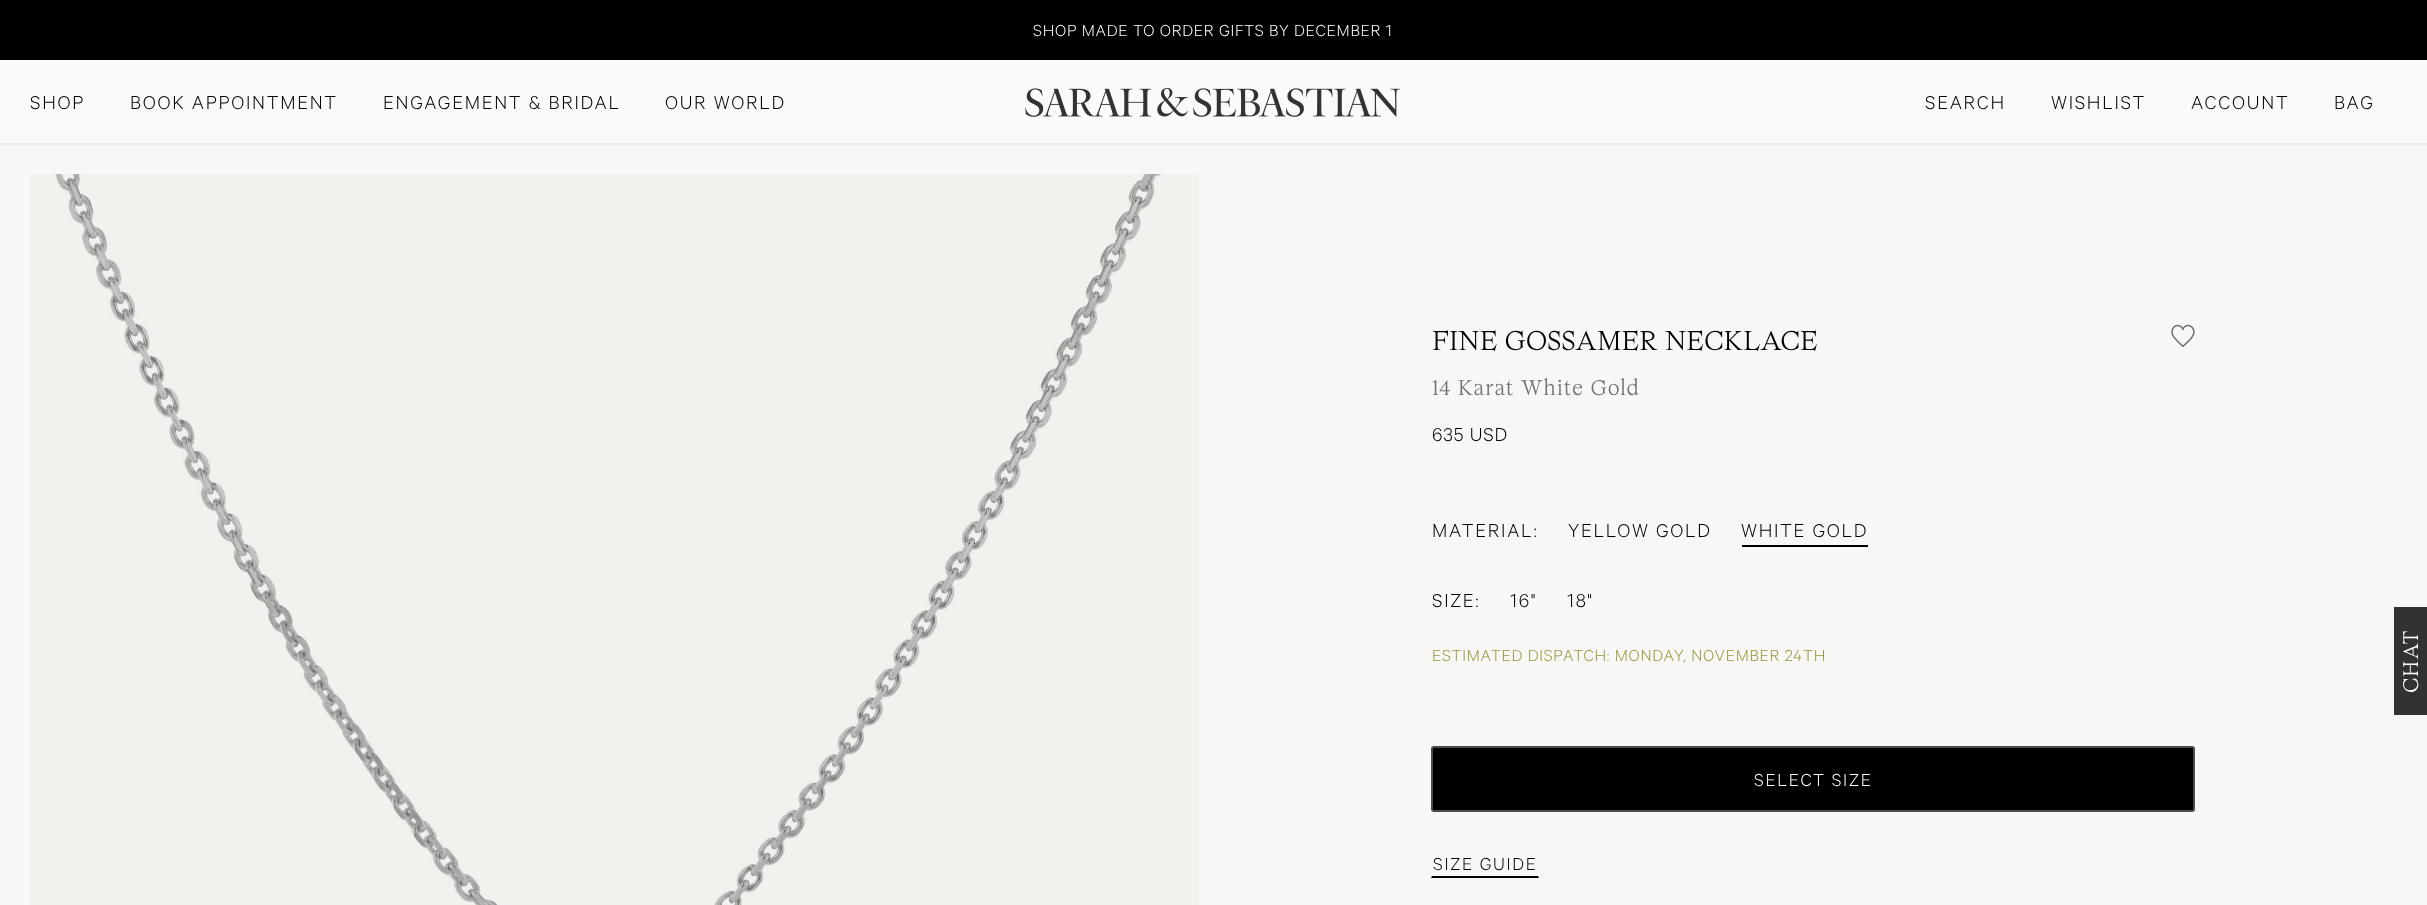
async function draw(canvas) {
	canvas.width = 2427;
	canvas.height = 905;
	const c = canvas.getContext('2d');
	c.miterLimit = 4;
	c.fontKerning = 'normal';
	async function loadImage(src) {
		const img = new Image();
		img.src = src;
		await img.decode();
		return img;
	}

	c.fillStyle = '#f8f7f5';
	c.fillRect(0, 0, 2427, 905);
	c.fillStyle = '#000';
	c.fillRect(0, 0, 2427, 60);
	c.letterSpacing = '0.7px';
	c.font = '300 18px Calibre';
	c.fillStyle = '#fff';
	c.fillText('SHOP MADE TO ORDER GIFTS BY DECEMBER 1', 1033, 36);
	c.fillStyle = '#fafaf9';
	c.fillRect(0, 60, 2427, 83);
	c.fillStyle = '#ebebeb';
	c.fillRect(0, 143, 2427, 2);
	c.letterSpacing = '1.7px';
	c.font = '300 21px Calibre';
	c.fillStyle = '#000';
	for (const [text, x, y] of [
		['SHOP', 30, 109],
		['BOOK APPOINTMENT', 130, 109],
		['ENGAGEMENT & BRIDAL', 383, 109],
		['OUR WORLD', 665, 109],
	]) {
		c.fillText(text, x, y);
	}
	c.drawImage(await loadImage('img1.png'), 1025, 88, 376, 29);
	for (const [text, x, y] of [
		['SEARCH', 1925, 109],
		['WISHLIST', 2051, 109],
		['ACCOUNT', 2191, 109],
		['BAG', 2334, 109],
	]) {
		c.fillText(text, x, y);
	}
	c.drawImage(await loadImage('img2.png'), 30, 174, 1169, 731);
	c.letterSpacing = '0px';
	c.font = '27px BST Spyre';
	c.fillText('FINE GOSSAMER NECKLACE', 1432, 350);
	c.drawImage(await loadImage('img3.png'), 2171, 324, 24, 23);
	c.letterSpacing = '0.8px';
	c.font = '21px BST Spyre';
	c.fillStyle = '#707070';
	c.fillText('14 Karat White Gold', 1432, 395);
	c.font = '300 21px Calibre';
	c.fillStyle = '#000';
	c.fillText('635 USD', 1432, 441);
	c.letterSpacing = '1.7px';
	for (const [text, x, y] of [
		['MATERIAL:', 1432, 537],
		['YELLOW GOLD', 1568, 537],
		['WHITE GOLD', 1741, 537],
	]) {
		c.fillText(text, x, y);
	}
	c.fillRect(1742, 545, 126, 2);
	for (const [text, x, y] of [
		['SIZE:', 1432, 607],
		['16"', 1510, 607],
		['18"', 1567, 607],
	]) {
		c.fillText(text, x, y);
	}
	c.letterSpacing = '0.7px';
	c.font = '300 18px Calibre';
	c.fillStyle = '#969639';
	c.fillText('ESTIMATED DISPATCH: MONDAY, NOVEMBER 24TH', 1432, 661);
	c.fillStyle = '#000';
	c.beginPath();
	c.roundRect(1432, 747, 762, 64, 2);
	c.fill();
	c.strokeStyle = '#4c4c4c';
	c.lineWidth = 2;
	c.stroke();
	c.letterSpacing = '1.7px';
	c.font = '300 19.5px Calibre';
	c.fillStyle = '#fff';
	c.fillText('SELECT SIZE', 1754, 786);
	c.fillStyle = '#000';
	c.beginPath();
	c.moveTo(1539, 878);
	c.lineTo(1431, 878);
	c.lineTo(1432, 876);
	c.lineTo(1538, 876);
	c.closePath();
	c.fill();
	c.fillText('SIZE GUIDE', 1433, 870);
	c.fillStyle = '#333132';
	c.fillRect(2394, 607, 33, 108);
	c.letterSpacing = '0.8px';
	c.font = '21px BST Spyre';
	c.fillStyle = '#fff';
	c.save();
	c.translate(2418, 693);
	c.rotate(-90 * Math.PI / 180);
	c.fillText('CHAT', 0, 0);
	c.restore();
}

draw(document.querySelector('canvas'));
